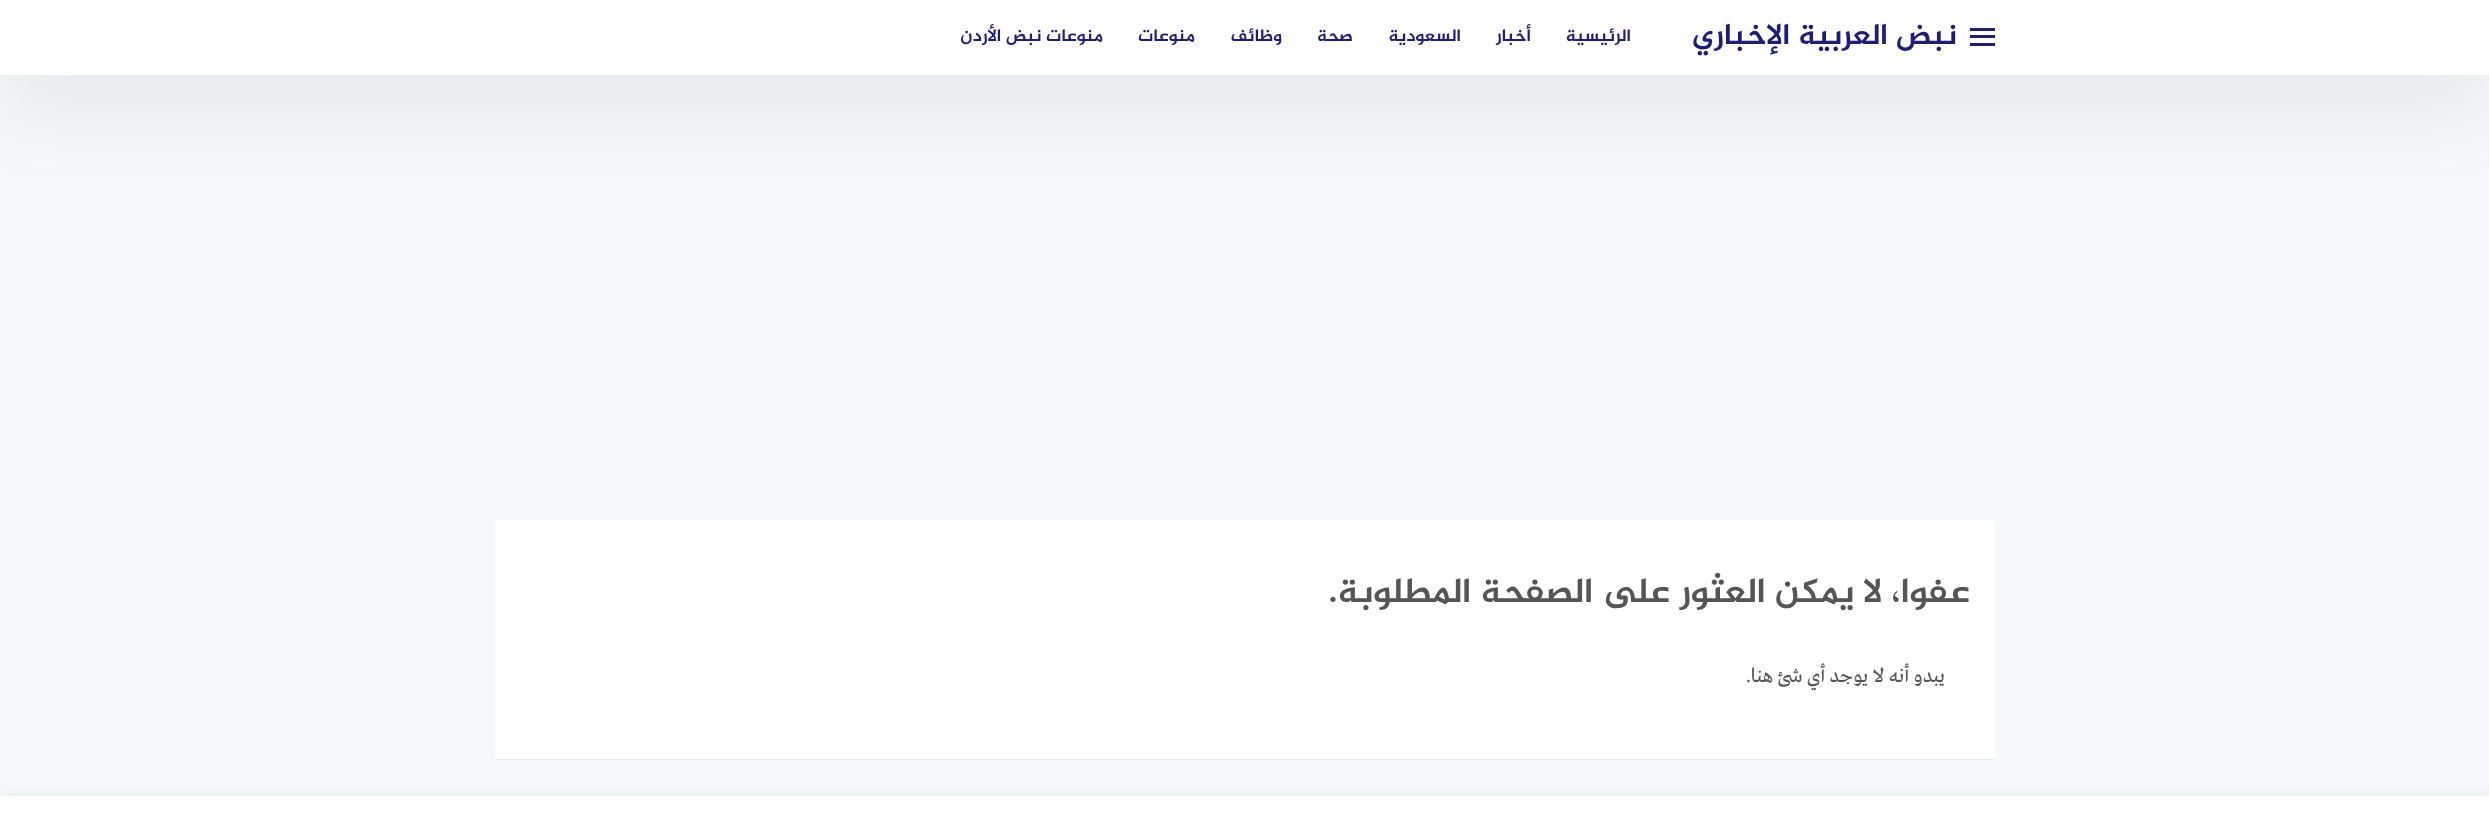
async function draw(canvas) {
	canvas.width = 2489;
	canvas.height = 816;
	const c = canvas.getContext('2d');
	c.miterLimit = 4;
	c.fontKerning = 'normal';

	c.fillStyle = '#f6f9f9';
	c.fillRect(0, 0, 2489, 816);
	c.fillStyle = '#36394917';
	c.filter = 'blur(37.5px)';
	c.beginPath();
	c.rect(0, 36, 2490, 75);
	c.fill();
	c.filter = 'none';
	for (const [x, y, w, h, color] of [
		[0, 0, 2489, 75, '#fff'],
		[1970, 28, 25, 3, '#1e1c7c'],
		[1970, 35, 25, 3, '#1e1c7c'],
		[1970, 43, 25, 3, '#1e1c7c'],
	]) {
		c.fillStyle = color;
		c.fillRect(x, y, w, h);
	}
	c.direction = 'rtl';
	c.font = 'bold 30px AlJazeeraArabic';
	c.fillText('نبض العربية الإخباري', 1957, 44);
	c.font = 'bold 17.5px AlJazeeraArabic';
	for (const [text, x, y] of [
		['الرئيسية', 1631, 41],
		['أخبار', 1531, 41],
		['السعودية', 1461, 41],
		['صحة', 1353, 41],
		['وظائف', 1282, 41],
		['منوعات', 1195, 41],
		['منوعات نبض الأردن', 1103, 41],
	]) {
		c.fillText(text, x, y);
	}
	c.fillStyle = '#0000000d';
	c.filter = 'blur(0.5px)';
	c.beginPath();
	c.rect(495, 521, 1500, 239);
	c.fill();
	c.filter = 'none';
	c.fillStyle = '#fff';
	c.fillRect(495, 520, 1500, 239);
	c.font = 'bold 35px AlJazeeraArabic';
	c.fillStyle = '#555';
	c.fillText('عفوا، لا يمكن العثور على الصفحة المطلوبة.', 1970, 602);
	c.font = '21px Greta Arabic';
	c.fillText('يبدو أنه لا يوجد أي شئ هنا.', 1945, 682);
	c.fillStyle = '#6e8fab26';
	c.filter = 'blur(7.5px)';
	c.beginPath();
	c.rect(0, 796, 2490, 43);
	c.fill();
	c.filter = 'none';
	c.fillStyle = '#fff';
	c.fillRect(0, 796, 2489, 20);
}

draw(document.querySelector('canvas'));
